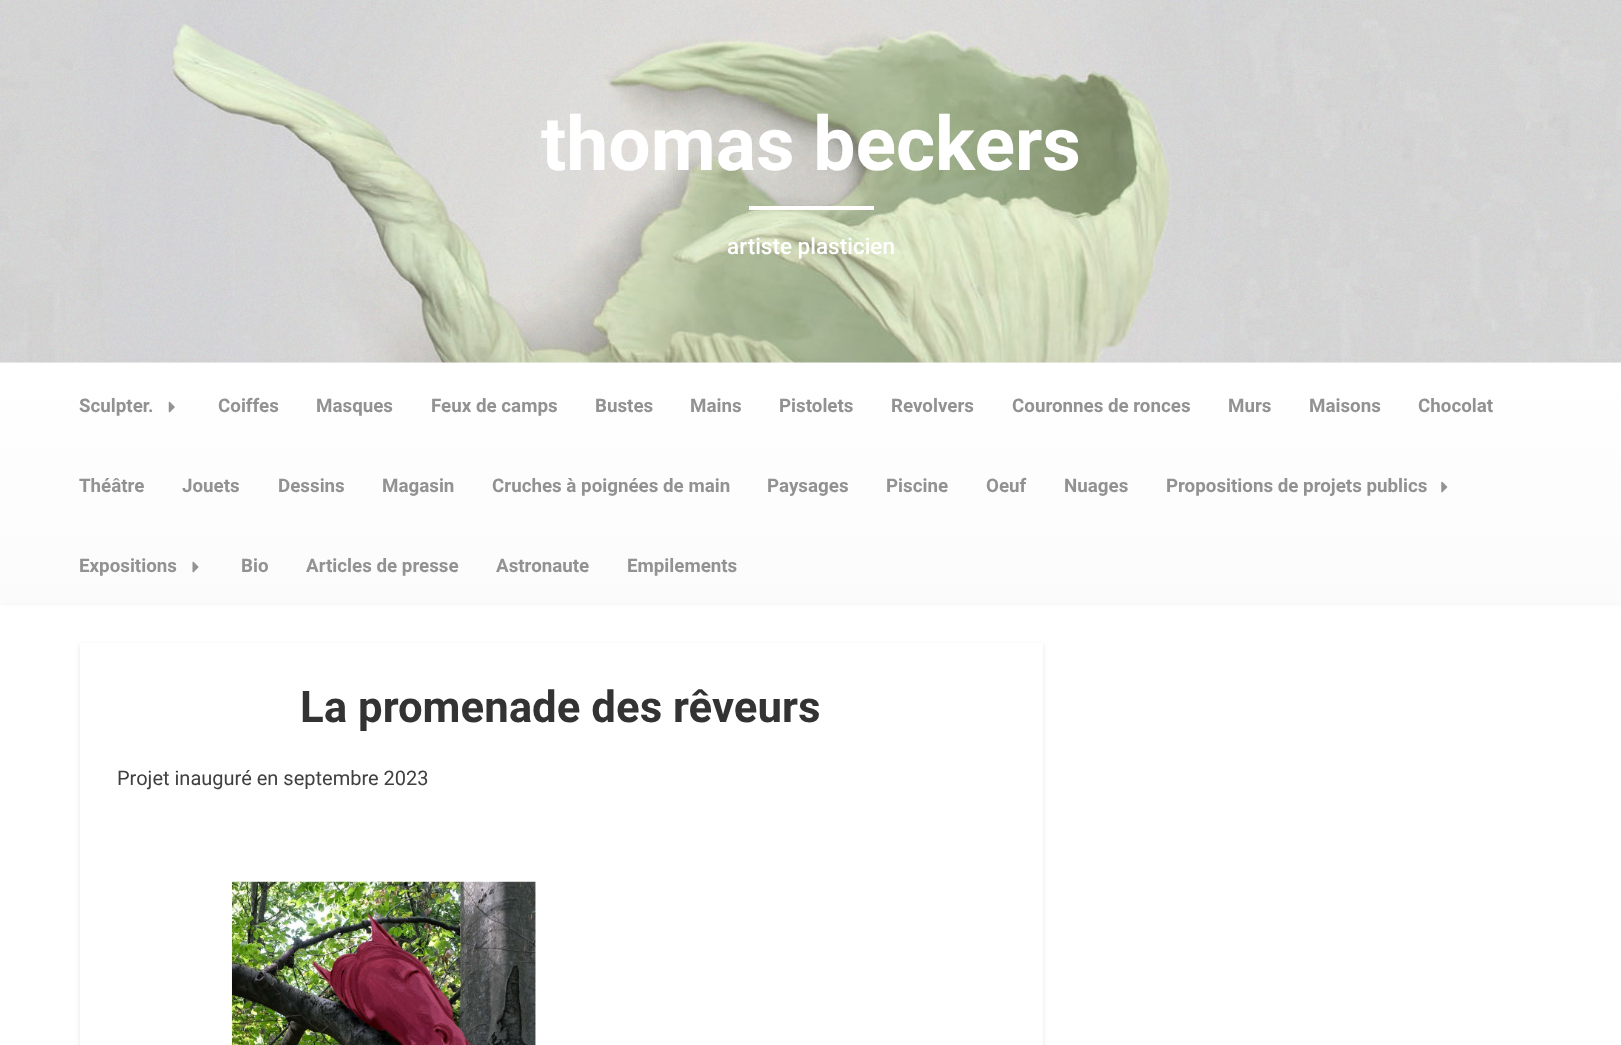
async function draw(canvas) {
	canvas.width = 1621;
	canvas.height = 1045;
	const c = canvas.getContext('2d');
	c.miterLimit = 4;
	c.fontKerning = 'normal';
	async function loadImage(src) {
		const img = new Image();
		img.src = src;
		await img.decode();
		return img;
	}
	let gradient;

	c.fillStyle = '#fff';
	c.fillRect(0, 0, 1621, 1045);
	c.drawImage(await loadImage('img1.png'), 0, 0, 1621, 363);
	c.font = 'bold 75px Roboto';
	c.fillText('thomas beckers', 541, 170);
	c.fillRect(749, 206, 125, 4);
	c.font = '500 22.5px Roboto';
	c.fillText('artiste plasticien', 727, 254);
	c.fillStyle = '#bebebe33';
	c.filter = 'blur(2px)';
	c.beginPath();
	c.rect(0, 364, 1621, 240);
	c.fill();
	c.filter = 'none';
	gradient = c.createLinearGradient(811, 362, 811, 603);
	gradient.addColorStop(0, '#fff');
	gradient.addColorStop(1, '#fbfbfc');
	c.fillStyle = gradient;
	c.fillRect(0, 363, 1621, 240);
	c.font = 'bold 18.75px Roboto';
	c.fillStyle = '#929292';
	c.fillText('Sculpter.', 79, 412);
	c.drawImage(await loadImage('img2.png'), 168, 401, 7, 12);
	for (const [text, x, y] of [
		['Coiffes', 218, 412],
		['Masques', 316, 412],
		['Feux de camps', 431, 412],
		['Bustes', 595, 412],
		['Mains', 690, 412],
		['Pistolets', 779, 412],
		['Revolvers', 891, 412],
		['Couronnes de ronces', 1012, 412],
		['Murs', 1228, 412],
		['Maisons', 1309, 412],
		['Chocolat', 1418, 412],
		['Théâtre', 79, 492],
		['Jouets', 182, 492],
		['Dessins', 278, 492],
		['Magasin', 382, 492],
		['Cruches à poignées de main', 492, 492],
		['Paysages', 767, 492],
		['Piscine', 886, 492],
		['Oeuf', 986, 492],
		['Nuages', 1064, 492],
		['Propositions de projets publics', 1166, 492],
	]) {
		c.fillText(text, x, y);
	}
	c.drawImage(await loadImage('img3.png'), 1441, 481, 7, 12);
	c.fillText('Expositions', 79, 572);
	c.drawImage(await loadImage('img4.png'), 192, 561, 7, 12);
	for (const [text, x, y] of [
		['Bio', 241, 572],
		['Articles de presse', 306, 572],
		['Astronaute', 496, 572],
		['Empilements', 627, 572],
	]) {
		c.fillText(text, x, y);
	}
	c.fillStyle = '#0000001a';
	c.filter = 'blur(2.5px)';
	c.beginPath();
	c.rect(80, 645, 963, 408);
	c.fill();
	c.filter = 'none';
	c.fillStyle = '#fff';
	c.fillRect(80, 643, 963, 402);
	c.font = 'bold 43.75px Roboto';
	c.fillStyle = '#333';
	c.fillText('La promenade des rêveurs', 300, 722);
	c.font = '20px Roboto';
	c.fillStyle = '#404040';
	c.fillText('Projet inauguré en septembre 2023', 117, 785);
	c.drawImage(await loadImage('img5.png'), 231, 881, 305, 164);
}

draw(document.querySelector('canvas'));
